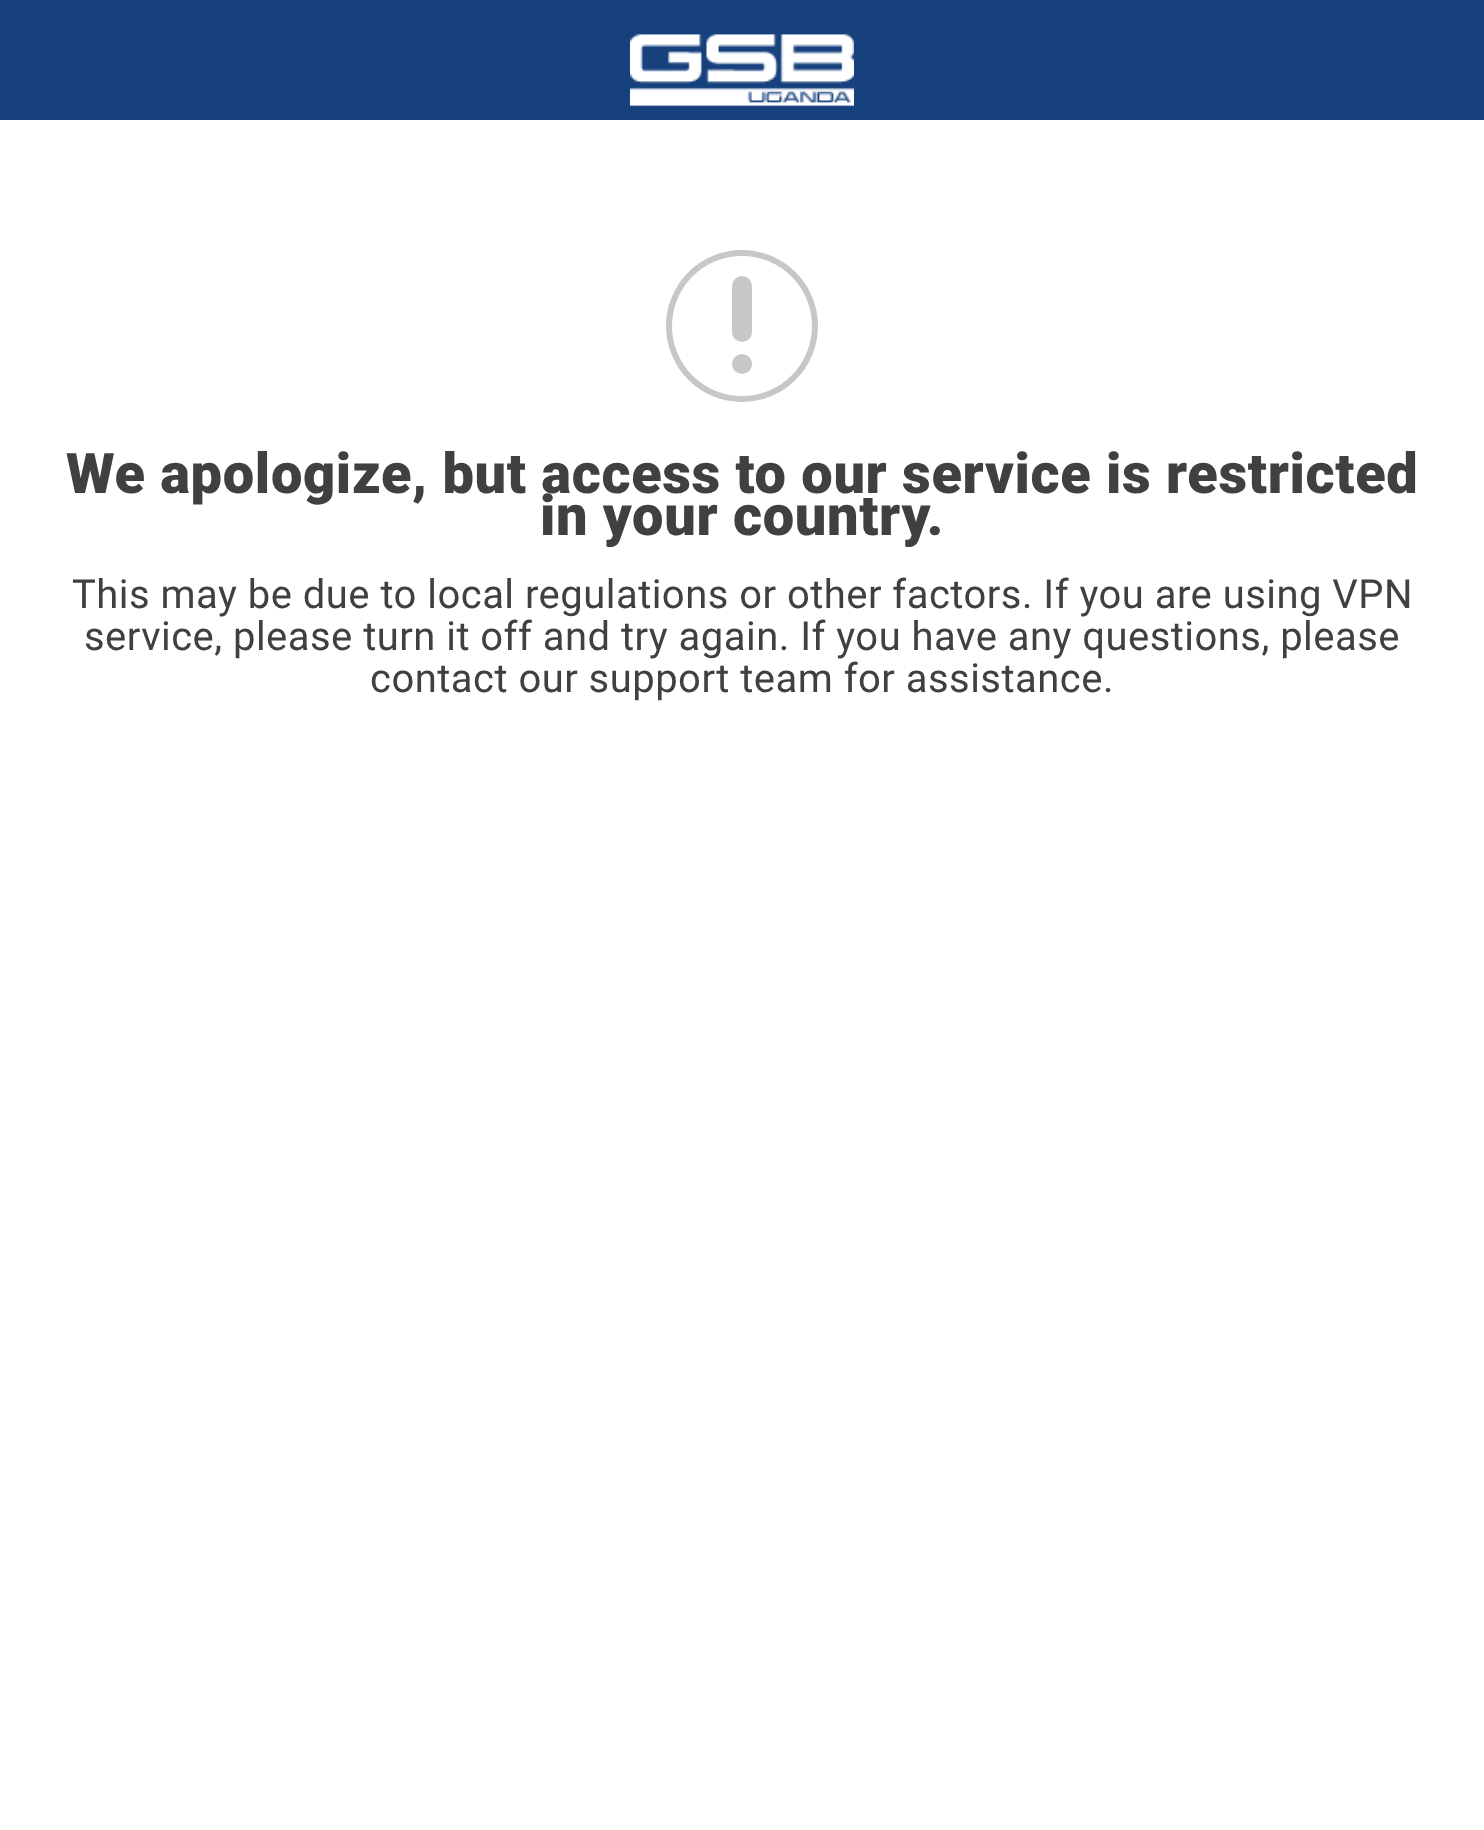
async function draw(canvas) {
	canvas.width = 1484;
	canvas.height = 1830;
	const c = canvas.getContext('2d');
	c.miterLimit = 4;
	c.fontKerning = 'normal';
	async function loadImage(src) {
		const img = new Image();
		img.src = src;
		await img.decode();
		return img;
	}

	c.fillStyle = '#fff';
	c.fillRect(0, 0, 1484, 1830);
	c.fillStyle = '#16417d';
	c.fillRect(0, 0, 1484, 120);
	c.drawImage(await loadImage('img1.png'), 630, 34, 224, 73);
	c.fillStyle = '#c7c7c7';
	c.beginPath();
	c.arc(742, 326, 76, 0, 2 * Math.PI);
	c.fill();
	c.fillStyle = '#fff';
	c.beginPath();
	c.arc(742, 326, 70, 0, 2 * Math.PI);
	c.fill();
	c.fillStyle = '#c7c7c7';
	c.beginPath();
	c.roundRect(732, 276, 20, 66, 10);
	c.fill();
	c.beginPath();
	c.arc(742, 364, 10, 0, 2 * Math.PI);
	c.fill();
	c.letterSpacing = '0.65px';
	c.font = '900 56px Roboto';
	c.fillStyle = '#404040';
	c.fillText('We apologize, but access to our service is restricted', 66, 493);
	c.fillText('in your country.', 540, 535);
	c.letterSpacing = '0.48px';
	c.font = '40px Roboto';
	for (const [text, x, y] of [
		['This may be due to local regulations or other factors. If you are using VPN', 72, 608],
		['service, please turn it off and try again. If you have any questions, please', 84, 650],
		['contact our support team for assistance.', 370, 692],
	]) {
		c.fillText(text, x, y);
	}
}

draw(document.querySelector('canvas'));
